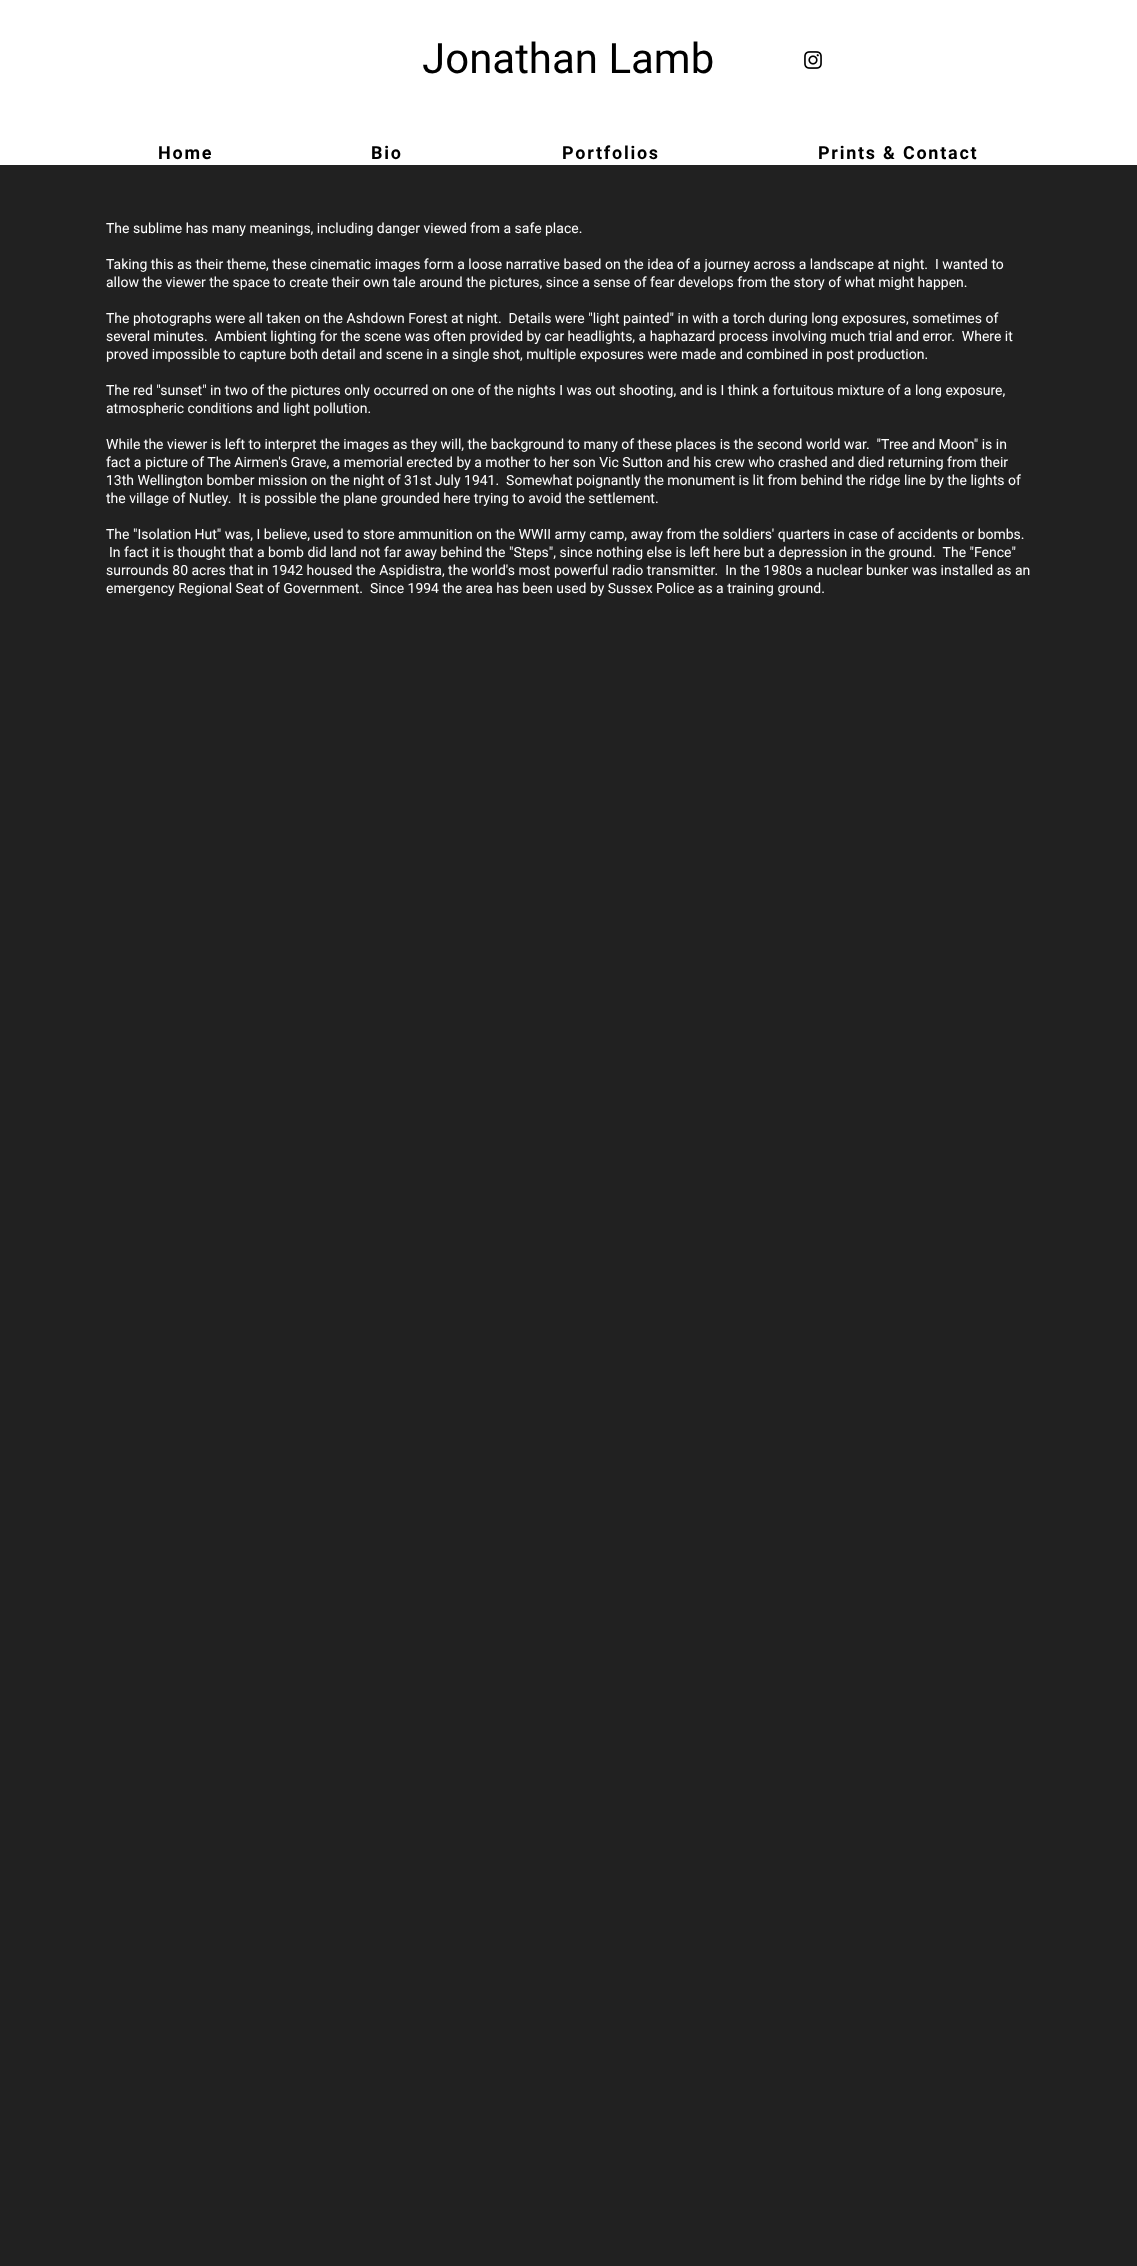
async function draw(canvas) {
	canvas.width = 1137;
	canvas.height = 2266;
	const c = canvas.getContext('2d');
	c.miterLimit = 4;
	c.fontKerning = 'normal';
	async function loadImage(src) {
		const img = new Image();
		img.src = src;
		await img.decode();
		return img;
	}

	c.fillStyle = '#212121';
	c.fillRect(0, 0, 1137, 2266);
	c.fillStyle = '#fff';
	c.fillRect(0, 0, 1137, 165);
	c.font = '42px Roboto';
	c.fillStyle = '#000';
	c.fillText('Jonathan Lamb', 422, 73);
	c.drawImage(await loadImage('img1.png'), 804, 51, 18, 18);
	c.letterSpacing = '1.75px';
	c.font = 'bold 18px Roboto';
	for (const [text, x, y] of [
		['Home', 158, 159],
		['Bio', 371, 159],
		['Portfolios', 562, 159],
		['Prints & Contact', 818, 159],
	]) {
		c.fillText(text, x, y);
	}
	c.letterSpacing = '0px';
	c.font = '14px Roboto';
	c.fillStyle = '#fff';
	for (const [text, x, y] of [
		['The sublime has many meanings, including danger viewed from a safe place.', 106, 233],
		['Taking this as their theme, these cinematic images form a loose narrative based on the idea of a journey across a landscape at night.  I wanted to', 106, 269],
		['allow the viewer the space to create their own tale around the pictures, since a sense of fear develops from the story of what might happen.', 106, 287],
		['The photographs were all taken on the Ashdown Forest at night.  Details were "light painted" in with a torch during long exposures, sometimes of', 106, 323],
		['several minutes.  Ambient lighting for the scene was often provided by car headlights, a haphazard process involving much trial and error.  Where it', 106, 341],
		['proved impossible to capture both detail and scene in a single shot, multiple exposures were made and combined in post production.', 106, 359],
		['The red "sunset" in two of the pictures only occurred on one of the nights I was out shooting, and is I think a fortuitous mixture of a long exposure,', 106, 395],
		['atmospheric conditions and light pollution.', 106, 413],
		['While the viewer is left to interpret the images as they will, the background to many of these places is the second world war.  "Tree and Moon" is in', 106, 449],
		['fact a picture of The Airmen\'s Grave, a memorial erected by a mother to her son Vic Sutton and his crew who crashed and died returning from their', 106, 467],
		['13th Wellington bomber mission on the night of 31st July 1941.  Somewhat poignantly the monument is lit from behind the ridge line by the lights of', 106, 485],
		['the village of Nutley.  It is possible the plane grounded here trying to avoid the settlement.', 106, 503],
		['The "Isolation Hut" was, I believe, used to store ammunition on the WWII army camp, away from the soldiers\' quarters in case of accidents or bombs.', 106, 539],
		['In fact it is thought that a bomb did land not far away behind the "Steps", since nothing else is left here but a depression in the ground.  The "Fence"', 109, 557],
		['surrounds 80 acres that in 1942 housed the Aspidistra, the world\'s most powerful radio transmitter.  In the 1980s a nuclear bunker was installed as an', 106, 575],
		['emergency Regional Seat of Government.  Since 1994 the area has been used by Sussex Police as a training ground.', 106, 593],
	]) {
		c.fillText(text, x, y);
	}
}

draw(document.querySelector('canvas'));
